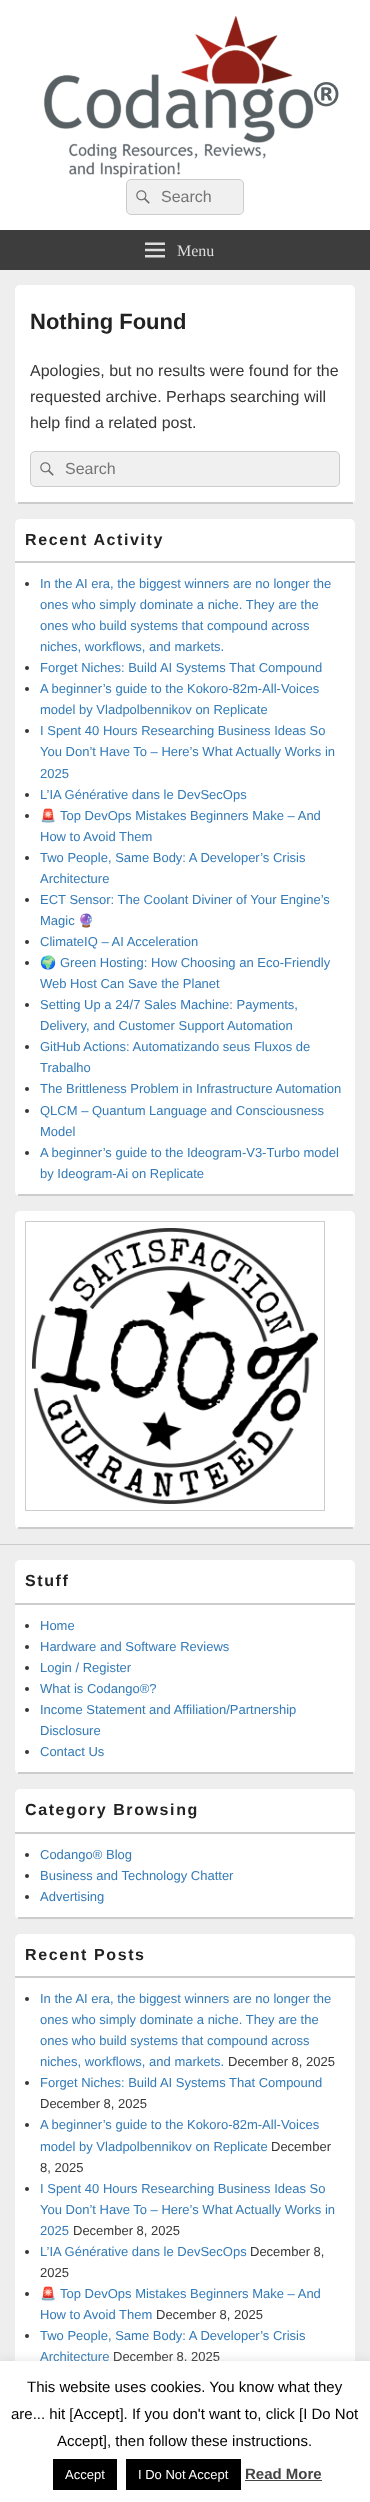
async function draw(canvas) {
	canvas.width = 370;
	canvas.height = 2502;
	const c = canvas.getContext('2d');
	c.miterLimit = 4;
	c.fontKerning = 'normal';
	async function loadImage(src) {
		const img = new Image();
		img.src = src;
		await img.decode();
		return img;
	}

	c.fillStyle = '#eee';
	c.fillRect(0, 0, 370, 2502);
	c.fillStyle = '#fff';
	c.fillRect(0, 0, 370, 230);
	c.drawImage(await loadImage('img1.png'), 43, 16, 296, 162);
	c.fillStyle = '#f0f0f0';
	c.beginPath();
	c.roundRect(126.5, 179.5, 117, 35, 4.5);
	c.fill();
	c.strokeStyle = '#ccc';
	c.stroke();
	c.drawImage(await loadImage('img2.png'), 136, 190, 14, 14);
	c.font = '16px Liberation Sans';
	c.fillStyle = '#757575';
	c.fillText('Search', 161, 202);
	c.fillStyle = '#3d3d3d';
	c.fillRect(0, 230, 370, 40);
	c.drawImage(await loadImage('img3.png'), 145, 242, 20, 16);
	c.font = '16px Liberation Serif';
	c.fillStyle = '#ddd';
	c.fillText('Menu', 177, 256);
	c.fillStyle = '#fff';
	c.beginPath();
	c.roundRect(15, 285, 340, 219, 5);
	c.fill();
	c.fillStyle = '#ccc';
	c.fillRect(18, 502, 335, 2);
	c.font = 'bold 22px Liberation Sans';
	c.fillStyle = '#222';
	c.fillText('Nothing Found', 30, 329);
	c.font = '16px Liberation Sans';
	c.fillStyle = '#373737';
	for (const [text, x, y] of [
		['Apologies, but no results were found for the', 30, 376],
		['requested archive. Perhaps searching will', 30, 402],
		['help find a related post.', 30, 428],
	]) {
		c.fillText(text, x, y);
	}
	c.fillStyle = '#f0f0f0';
	c.beginPath();
	c.roundRect(30.5, 451.5, 309, 35, 4.5);
	c.fill();
	c.stroke();
	c.drawImage(await loadImage('img2.png'), 40, 462, 14, 14);
	c.fillStyle = '#757575';
	c.fillText('Search', 65, 474);
	c.fillStyle = '#fff';
	c.beginPath();
	c.roundRect(15, 519, 340, 677, 5);
	c.fill();
	c.fillStyle = '#ccc';
	c.fillRect(18, 1194, 335, 2);
	c.fillRect(15, 561, 340, 2);
	c.letterSpacing = '1.6px';
	c.font = 'bold 16px Liberation Sans';
	c.fillStyle = '#222';
	c.fillText('Recent Activity', 25, 545);
	c.fillStyle = '#373737';
	c.beginPath();
	c.arc(27, 584, 2, 0, 2 * Math.PI);
	c.fill();
	c.letterSpacing = '0px';
	c.font = '13px Liberation Sans';
	c.fillStyle = '#337ab7';
	for (const [text, x, y] of [
		['In the AI era, the biggest winners are no longer the', 40, 588],
		['ones who simply dominate a niche. They are the', 40, 609],
		['ones who build systems that compound across', 40, 630],
		['niches, workflows, and markets.', 40, 651],
	]) {
		c.fillText(text, x, y);
	}
	c.fillStyle = '#373737';
	c.beginPath();
	c.arc(27, 668, 2, 0, 2 * Math.PI);
	c.fill();
	c.fillStyle = '#337ab7';
	c.fillText('Forget Niches: Build AI Systems That Compound', 40, 672);
	c.fillStyle = '#373737';
	c.beginPath();
	c.arc(27, 689, 2, 0, 2 * Math.PI);
	c.fill();
	c.fillStyle = '#337ab7';
	c.fillText('A beginner’s guide to the Kokoro-82m-All-Voices', 40, 693);
	c.fillText('model by Vladpolbennikov on Replicate', 40, 714);
	c.fillStyle = '#373737';
	c.beginPath();
	c.arc(27, 731, 2, 0, 2 * Math.PI);
	c.fill();
	c.fillStyle = '#337ab7';
	for (const [text, x, y] of [
		['I Spent 40 Hours Researching Business Ideas So', 40, 735],
		['You Don’t Have To – Here’s What Actually Works in', 40, 756],
		['2025', 40, 778],
	]) {
		c.fillText(text, x, y);
	}
	c.fillStyle = '#373737';
	c.beginPath();
	c.arc(27, 795, 2, 0, 2 * Math.PI);
	c.fill();
	c.fillStyle = '#337ab7';
	c.fillText('L’IA Générative dans le DevSecOps', 40, 799);
	c.fillStyle = '#373737';
	c.beginPath();
	c.arc(27, 816, 2, 0, 2 * Math.PI);
	c.fill();
	c.font = '13px Noto Color Emoji';
	c.fillStyle = '#337ab7';
	c.fillText('🚨', 40, 820);
	c.font = '13px Liberation Sans';
	c.fillText('Top DevOps Mistakes Beginners Make – And', 60, 820);
	c.fillText('How to Avoid Them', 40, 841);
	c.fillStyle = '#373737';
	c.beginPath();
	c.arc(27, 858, 2, 0, 2 * Math.PI);
	c.fill();
	c.fillStyle = '#337ab7';
	c.fillText('Two People, Same Body: A Developer’s Crisis', 40, 862);
	c.fillText('Architecture', 40, 883);
	c.fillStyle = '#373737';
	c.beginPath();
	c.arc(27, 900, 2, 0, 2 * Math.PI);
	c.fill();
	c.fillStyle = '#337ab7';
	c.fillText('ECT Sensor: The Coolant Diviner of Your Engine’s', 40, 904);
	c.fillText('Magic', 40, 925);
	c.font = '13px Noto Color Emoji';
	c.fillText('🔮', 78, 925);
	c.fillStyle = '#373737';
	c.beginPath();
	c.arc(27, 942, 2, 0, 2 * Math.PI);
	c.fill();
	c.font = '13px Liberation Sans';
	c.fillStyle = '#337ab7';
	c.fillText('ClimateIQ – AI Acceleration', 40, 946);
	c.fillStyle = '#373737';
	c.beginPath();
	c.arc(27, 963, 2, 0, 2 * Math.PI);
	c.fill();
	c.font = '13px Noto Color Emoji';
	c.fillStyle = '#337ab7';
	c.fillText('🌍', 40, 967);
	c.font = '13px Liberation Sans';
	c.fillText('Green Hosting: How Choosing an Eco-Friendly', 60, 967);
	c.fillText('Web Host Can Save the Planet', 40, 988);
	c.fillStyle = '#373737';
	c.beginPath();
	c.arc(27, 1005, 2, 0, 2 * Math.PI);
	c.fill();
	c.fillStyle = '#337ab7';
	c.fillText('Setting Up a 24/7 Sales Machine: Payments,', 40, 1009);
	c.fillText('Delivery, and Customer Support Automation', 40, 1030);
	c.fillStyle = '#373737';
	c.beginPath();
	c.arc(27, 1047, 2, 0, 2 * Math.PI);
	c.fill();
	c.fillStyle = '#337ab7';
	c.fillText('GitHub Actions: Automatizando seus Fluxos de', 40, 1051);
	c.fillText('Trabalho', 40, 1072);
	c.fillStyle = '#373737';
	c.beginPath();
	c.arc(27, 1089, 2, 0, 2 * Math.PI);
	c.fill();
	c.fillStyle = '#337ab7';
	c.fillText('The Brittleness Problem in Infrastructure Automation', 40, 1093);
	c.fillStyle = '#373737';
	c.beginPath();
	c.arc(27, 1111, 2, 0, 2 * Math.PI);
	c.fill();
	c.fillStyle = '#337ab7';
	c.fillText('QLCM – Quantum Language and Consciousness', 40, 1115);
	c.fillText('Model', 40, 1136);
	c.fillStyle = '#373737';
	c.beginPath();
	c.arc(27, 1153, 2, 0, 2 * Math.PI);
	c.fill();
	c.fillStyle = '#337ab7';
	c.fillText('A beginner’s guide to the Ideogram-V3-Turbo model', 40, 1157);
	c.fillText('by Ideogram-Ai on Replicate', 40, 1178);
	c.fillStyle = '#fff';
	c.beginPath();
	c.roundRect(15, 1211, 340, 318, 5);
	c.fill();
	c.fillStyle = '#ccc';
	c.fillRect(18, 1527, 335, 2);
	c.strokeRect(25.5, 1221.5, 299, 289);
	c.drawImage(await loadImage('img4.png'), 32, 1228, 286, 276);
	c.fillRect(0, 1544, 370, 1);
	c.fillStyle = '#fff';
	c.beginPath();
	c.roundRect(15, 1560, 340, 214, 5);
	c.fill();
	c.fillStyle = '#ccc';
	c.fillRect(18, 1772, 335, 2);
	c.fillRect(15, 1603, 340, 2);
	c.letterSpacing = '1.6px';
	c.font = 'bold 16px Liberation Sans';
	c.fillStyle = '#222';
	c.fillText('Stuff', 25, 1586);
	c.fillStyle = '#373737';
	c.beginPath();
	c.arc(27, 1626, 2, 0, 2 * Math.PI);
	c.fill();
	c.letterSpacing = '0px';
	c.font = '13px Liberation Sans';
	c.fillStyle = '#337ab7';
	c.fillText('Home', 40, 1630);
	c.fillStyle = '#373737';
	c.beginPath();
	c.arc(27, 1647, 2, 0, 2 * Math.PI);
	c.fill();
	c.fillStyle = '#337ab7';
	c.fillText('Hardware and Software Reviews', 40, 1651);
	c.fillStyle = '#373737';
	c.beginPath();
	c.arc(27, 1668, 2, 0, 2 * Math.PI);
	c.fill();
	c.fillStyle = '#337ab7';
	c.fillText('Login / Register', 40, 1672);
	c.fillStyle = '#373737';
	c.beginPath();
	c.arc(27, 1689, 2, 0, 2 * Math.PI);
	c.fill();
	c.fillStyle = '#337ab7';
	c.fillText('What is Codango®?', 40, 1693);
	c.fillStyle = '#373737';
	c.beginPath();
	c.arc(27, 1710, 2, 0, 2 * Math.PI);
	c.fill();
	c.fillStyle = '#337ab7';
	c.fillText('Income Statement and Affiliation/Partnership', 40, 1714);
	c.fillText('Disclosure', 40, 1735);
	c.fillStyle = '#373737';
	c.beginPath();
	c.arc(27, 1752, 2, 0, 2 * Math.PI);
	c.fill();
	c.fillStyle = '#337ab7';
	c.fillText('Contact Us', 40, 1756);
	c.fillStyle = '#fff';
	c.beginPath();
	c.roundRect(15, 1789, 340, 130, 5);
	c.fill();
	c.fillStyle = '#ccc';
	c.fillRect(18, 1917, 335, 2);
	c.fillRect(15, 1832, 340, 2);
	c.letterSpacing = '1.6px';
	c.font = 'bold 16px Liberation Sans';
	c.fillStyle = '#222';
	c.fillText('Category Browsing', 25, 1815);
	c.fillStyle = '#373737';
	c.beginPath();
	c.arc(27, 1855, 2, 0, 2 * Math.PI);
	c.fill();
	c.letterSpacing = '0px';
	c.font = '13px Liberation Sans';
	c.fillStyle = '#337ab7';
	c.fillText('Codango® Blog', 40, 1859);
	c.fillStyle = '#373737';
	c.beginPath();
	c.arc(27, 1876, 2, 0, 2 * Math.PI);
	c.fill();
	c.fillStyle = '#337ab7';
	c.fillText('Business and Technology Chatter', 40, 1880);
	c.fillStyle = '#373737';
	c.beginPath();
	c.arc(27, 1897, 2, 0, 2 * Math.PI);
	c.fill();
	c.fillStyle = '#337ab7';
	c.fillText('Advertising', 40, 1901);
	c.fillStyle = '#fff';
	c.beginPath();
	c.roundRect(15, 1934, 340, 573, 5);
	c.fill();
	c.fillStyle = '#ccc';
	c.fillRect(15, 1976, 340, 2);
	c.letterSpacing = '1.6px';
	c.font = 'bold 16px Liberation Sans';
	c.fillStyle = '#222';
	c.fillText('Recent Posts', 25, 1960);
	c.fillStyle = '#373737';
	c.beginPath();
	c.arc(27, 1999, 2, 0, 2 * Math.PI);
	c.fill();
	c.letterSpacing = '0px';
	c.font = '13px Liberation Sans';
	c.fillStyle = '#337ab7';
	for (const [text, x, y] of [
		['In the AI era, the biggest winners are no longer the', 40, 2003],
		['ones who simply dominate a niche. They are the', 40, 2024],
		['ones who build systems that compound across', 40, 2045],
		['niches, workflows, and markets.', 40, 2066],
	]) {
		c.fillText(text, x, y);
	}
	c.fillStyle = '#373737';
	c.fillText('December 8, 2025', 228, 2066);
	c.beginPath();
	c.arc(27, 2083, 2, 0, 2 * Math.PI);
	c.fill();
	c.fillStyle = '#337ab7';
	c.fillText('Forget Niches: Build AI Systems That Compound', 40, 2087);
	c.fillStyle = '#373737';
	c.fillText('December 8, 2025', 40, 2108);
	c.beginPath();
	c.arc(27, 2125, 2, 0, 2 * Math.PI);
	c.fill();
	c.fillStyle = '#337ab7';
	c.fillText('A beginner’s guide to the Kokoro-82m-All-Voices', 40, 2129);
	c.fillText('model by Vladpolbennikov on Replicate', 40, 2151);
	c.fillStyle = '#373737';
	c.fillText('December', 271, 2151);
	c.fillText('8, 2025', 40, 2172);
	c.beginPath();
	c.arc(27, 2189, 2, 0, 2 * Math.PI);
	c.fill();
	c.fillStyle = '#337ab7';
	for (const [text, x, y] of [
		['I Spent 40 Hours Researching Business Ideas So', 40, 2193],
		['You Don’t Have To – Here’s What Actually Works in', 40, 2214],
		['2025', 40, 2235],
	]) {
		c.fillText(text, x, y);
	}
	c.fillStyle = '#373737';
	c.fillText('December 8, 2025', 73, 2235);
	c.beginPath();
	c.arc(27, 2252, 2, 0, 2 * Math.PI);
	c.fill();
	c.fillStyle = '#337ab7';
	c.fillText('L’IA Générative dans le DevSecOps', 40, 2256);
	c.fillStyle = '#373737';
	c.fillText('December 8,', 250, 2256);
	c.fillText('2025', 40, 2277);
	c.beginPath();
	c.arc(27, 2294, 2, 0, 2 * Math.PI);
	c.fill();
	c.font = '13px Noto Color Emoji';
	c.fillStyle = '#337ab7';
	c.fillText('🚨', 40, 2298);
	c.font = '13px Liberation Sans';
	c.fillText('Top DevOps Mistakes Beginners Make – And', 60, 2298);
	c.fillText('How to Avoid Them', 40, 2319);
	c.fillStyle = '#373737';
	c.fillText('December 8, 2025', 156, 2319);
	c.beginPath();
	c.arc(27, 2336, 2, 0, 2 * Math.PI);
	c.fill();
	c.fillStyle = '#337ab7';
	c.fillText('Two People, Same Body: A Developer’s Crisis', 40, 2340);
	c.fillText('Architecture', 40, 2361);
	c.fillStyle = '#373737';
	c.fillText('December 8, 2025', 113, 2361);
	c.fillStyle = '#acabab4d';
	c.filter = 'blur(5px)';
	c.beginPath();
	c.rect(0, 2360, 370, 141);
	c.fill();
	c.filter = 'none';
	c.fillStyle = '#fff';
	c.fillRect(0, 2361, 370, 141);
	c.font = '15px Liberation Sans';
	c.fillStyle = '#000';
	for (const [text, x, y] of [
		['This website uses cookies. You know what they', 27, 2392],
		['are... hit [Accept]. If you don\'t want to, click [I Do Not', 11, 2419],
		['Accept], then follow these instructions.', 57, 2446],
	]) {
		c.fillText(text, x, y);
	}
	c.fillRect(53, 2459, 64, 31);
	c.font = '13px Liberation Sans';
	c.fillStyle = '#fff';
	c.fillText('Accept', 65, 2479);
	c.fillStyle = '#000';
	c.fillRect(126, 2459, 115, 31);
	c.fillStyle = '#fff';
	c.fillText('I Do Not Accept', 138, 2479);
	c.font = 'bold 15px Liberation Sans';
	c.fillStyle = '#444';
	c.fillText('Read More', 245, 2479);
	c.fillRect(245, 2480, 77, 1);
}

draw(document.querySelector('canvas'));
